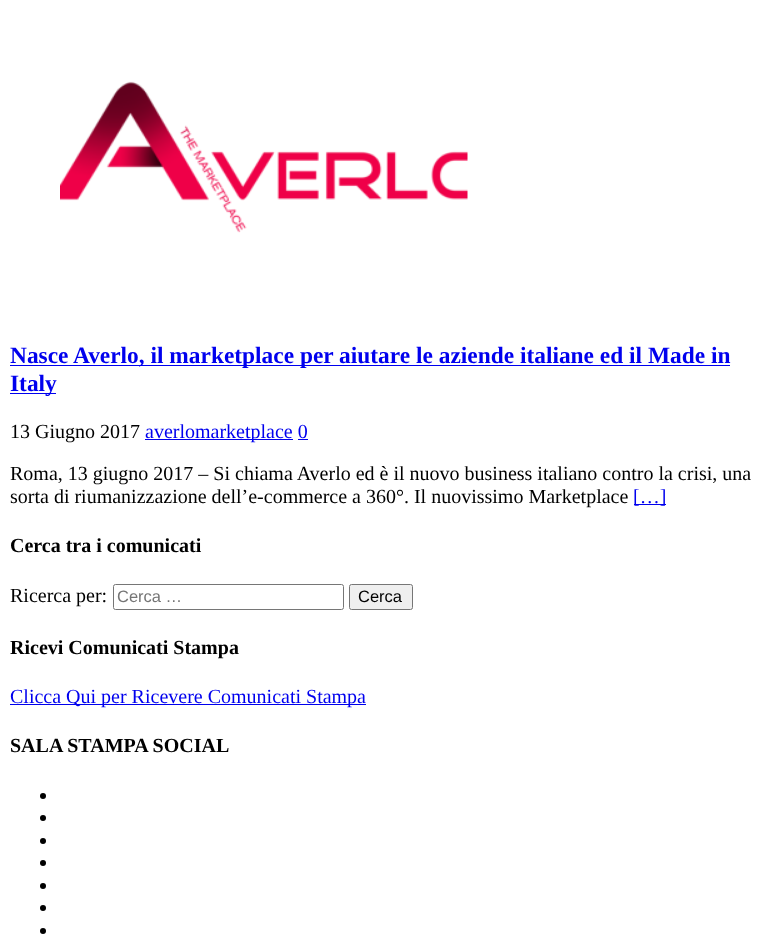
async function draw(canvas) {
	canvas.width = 781;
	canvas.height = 937;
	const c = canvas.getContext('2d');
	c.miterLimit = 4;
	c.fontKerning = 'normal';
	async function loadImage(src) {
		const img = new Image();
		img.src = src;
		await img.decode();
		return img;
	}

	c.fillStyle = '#fff';
	c.fillRect(0, 0, 781, 937);
	c.drawImage(await loadImage('img1.png'), 60, 81, 408, 152);
	c.fillStyle = '#00e';
	c.fillRect(10, 365, 720, 1);
	c.font = 'bold 23.4px Liberation Serif';
	c.fillText('Nasce Averlo, il marketplace per aiutare le aziende italiane ed il Made in', 10, 363);
	c.fillRect(10, 393, 46, 1);
	c.fillText('Italy', 10, 391);
	c.font = '20px Liberation Serif';
	c.fillStyle = '#000';
	c.fillText('13 Giugno 2017', 10, 438);
	c.fillStyle = '#00e';
	c.fillRect(145, 439, 148, 1);
	c.fillText('averlomarketplace 0', 145, 438);
	c.fillRect(298, 439, 10, 1);
	c.fillStyle = '#000';
	c.fillText('Roma, 13 giugno 2017 – Si chiama Averlo ed è il nuovo business italiano contro la crisi, una', 10, 480);
	c.fillText('sorta di riumanizzazione dell’e-commerce a 360°. Il nuovissimo Marketplace', 10, 503);
	c.fillStyle = '#00e';
	c.fillRect(634, 504, 32, 1);
	c.fillText('[…]', 633, 503);
	c.font = 'bold 20px Liberation Serif';
	c.fillStyle = '#000';
	c.fillText('Cerca tra i comunicati', 10, 552);
	c.font = '20px Liberation Serif';
	c.fillText('Ricerca per:', 10, 602);
	c.beginPath();
	c.roundRect(113.5, 584.5, 230, 25, 2);
	c.strokeStyle = '#767676';
	c.stroke();
	c.font = '16.5px Liberation Sans';
	c.fillStyle = '#757575';
	c.fillText('Cerca …', 117, 602);
	c.fillStyle = '#efefef';
	c.beginPath();
	c.roundRect(349.5, 584.5, 63, 25, 2);
	c.fill();
	c.stroke();
	c.fillStyle = '#000';
	c.fillText('Cerca', 358, 602);
	c.font = 'bold 20px Liberation Serif';
	c.fillText('Ricevi Comunicati Stampa', 10, 654);
	c.fillStyle = '#00e';
	c.fillRect(10, 704, 356, 1);
	c.font = '20px Liberation Serif';
	c.fillText('Clicca Qui per Ricevere Comunicati Stampa', 10, 703);
	c.font = 'bold 20px Liberation Serif';
	c.fillStyle = '#000';
	c.fillText('SALA STAMPA SOCIAL', 10, 752);
	c.beginPath();
	c.arc(43, 796, 3, 0, 2 * Math.PI);
	c.fill();
	c.beginPath();
	c.arc(43, 818, 3, 0, 2 * Math.PI);
	c.fill();
	c.beginPath();
	c.arc(43, 841, 3, 0, 2 * Math.PI);
	c.fill();
	c.beginPath();
	c.arc(43, 863, 3, 0, 2 * Math.PI);
	c.fill();
	c.beginPath();
	c.arc(43, 886, 3, 0, 2 * Math.PI);
	c.fill();
	c.beginPath();
	c.arc(43, 908, 3, 0, 2 * Math.PI);
	c.fill();
	c.beginPath();
	c.arc(43, 931, 3, 0, 2 * Math.PI);
	c.fill();
}

draw(document.querySelector('canvas'));
